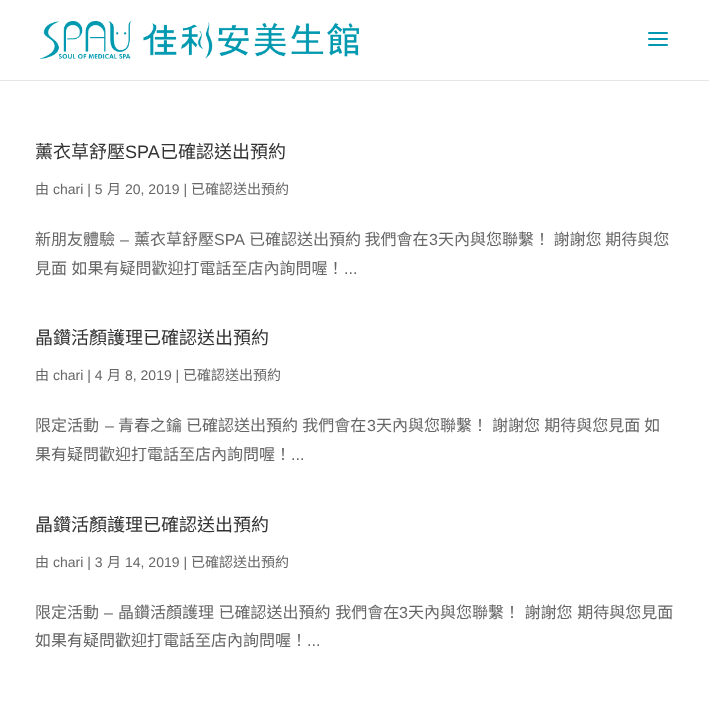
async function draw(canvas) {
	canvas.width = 709;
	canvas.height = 708;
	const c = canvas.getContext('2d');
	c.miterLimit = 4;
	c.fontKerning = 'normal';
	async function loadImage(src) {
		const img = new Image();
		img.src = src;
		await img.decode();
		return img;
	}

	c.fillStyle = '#fff';
	c.fillRect(0, 0, 709, 708);
	c.fillStyle = '#e6e6e6';
	c.fillRect(0, 80, 709, 1);
	c.drawImage(await loadImage('img1.png'), 40, 21, 319, 38);
	c.drawImage(await loadImage('img2.png'), 648, 32, 20, 14);
	c.font = '18px Noto Sans CJK TC';
	c.fillStyle = '#333';
	c.fillText('薰衣草舒壓', 35, 158);
	c.font = '18px Liberation Sans';
	c.fillText('SPA', 125, 158);
	c.font = '18px Noto Sans CJK TC';
	c.fillText('已確認送出預約', 160, 158);
	c.font = '14px Noto Sans CJK TC';
	c.fillStyle = '#666';
	c.fillText('由', 35, 194);
	c.font = '14px Liberation Sans';
	c.fillText('chari | 5', 53, 194);
	c.font = '14px Noto Sans CJK TC';
	c.fillText('月', 107, 194);
	c.font = '14px Liberation Sans';
	c.fillText('20, 2019 |', 125, 194);
	c.font = '14px Noto Sans CJK TC';
	c.fillText('已確認送出預約', 191, 194);
	c.font = '16px Noto Sans CJK TC';
	c.fillText('新朋友體驗', 35, 245);
	c.font = '16px Liberation Sans';
	c.fillText('–', 120, 245);
	c.font = '16px Noto Sans CJK TC';
	c.fillText('薰衣草舒壓', 134, 245);
	c.font = '16px Liberation Sans';
	c.fillText('SPA', 214, 245);
	c.font = '16px Noto Sans CJK TC';
	c.fillText('已確認送出預約 我們會在', 249, 245);
	c.font = '16px Liberation Sans';
	c.fillText('3', 429, 245);
	c.font = '16px Noto Sans CJK TC';
	c.fillText('天內與您聯繫！ 謝謝您 期待與您', 438, 245);
	c.wordSpacing = '1px';
	c.fillText('見面 如果有疑問歡迎打電話至店內詢問喔！', 35, 274);
	c.wordSpacing = '0px';
	c.font = '16px Liberation Sans';
	c.fillText('...', 344, 274);
	c.font = '18px Noto Sans CJK TC';
	c.fillStyle = '#333';
	c.fillText('晶鑽活顏護理已確認送出預約', 35, 344);
	c.font = '14px Noto Sans CJK TC';
	c.fillStyle = '#666';
	c.fillText('由', 35, 380);
	c.font = '14px Liberation Sans';
	c.fillText('chari | 4', 53, 380);
	c.font = '14px Noto Sans CJK TC';
	c.fillText('月', 107, 380);
	c.font = '14px Liberation Sans';
	c.fillText('8, 2019 |', 125, 380);
	c.font = '14px Noto Sans CJK TC';
	c.fillText('已確認送出預約', 183, 380);
	c.font = '16px Noto Sans CJK TC';
	c.fillText('限定活動', 35, 431);
	c.font = '16px Liberation Sans';
	c.fillText('–', 105, 431);
	c.wordSpacing = '0.5px';
	c.font = '16px Noto Sans CJK TC';
	c.fillText('青春之鑰 已確認送出預約 我們會在', 118, 431);
	c.wordSpacing = '0px';
	c.font = '16px Liberation Sans';
	c.fillText('3', 367, 431);
	c.wordSpacing = '0.5px';
	c.font = '16px Noto Sans CJK TC';
	c.fillText('天內與您聯繫！ 謝謝您 期待與您見面 如', 376, 431);
	c.wordSpacing = '0px';
	c.fillText('果有疑問歡迎打電話至店內詢問喔！', 35, 460);
	c.font = '16px Liberation Sans';
	c.fillText('...', 291, 460);
	c.font = '18px Noto Sans CJK TC';
	c.fillStyle = '#333';
	c.fillText('晶鑽活顏護理已確認送出預約', 35, 531);
	c.font = '14px Noto Sans CJK TC';
	c.fillStyle = '#666';
	c.fillText('由', 35, 567);
	c.font = '14px Liberation Sans';
	c.fillText('chari | 3', 53, 567);
	c.font = '14px Noto Sans CJK TC';
	c.fillText('月', 107, 567);
	c.font = '14px Liberation Sans';
	c.fillText('14, 2019 |', 125, 567);
	c.font = '14px Noto Sans CJK TC';
	c.fillText('已確認送出預約', 191, 567);
	c.font = '16px Noto Sans CJK TC';
	c.fillText('限定活動', 35, 618);
	c.font = '16px Liberation Sans';
	c.fillText('–', 104, 618);
	c.wordSpacing = '1px';
	c.font = '16px Noto Sans CJK TC';
	c.fillText('晶鑽活顏護理 已確認送出預約 我們會在', 118, 618);
	c.wordSpacing = '0px';
	c.font = '16px Liberation Sans';
	c.fillText('3', 399, 618);
	c.wordSpacing = '1px';
	c.font = '16px Noto Sans CJK TC';
	c.fillText('天內與您聯繫！ 謝謝您 期待與您見面', 408, 618);
	c.wordSpacing = '0px';
	c.fillText('如果有疑問歡迎打電話至店內詢問喔！', 35, 646);
	c.font = '16px Liberation Sans';
	c.fillText('...', 307, 646);
}

draw(document.querySelector('canvas'));
